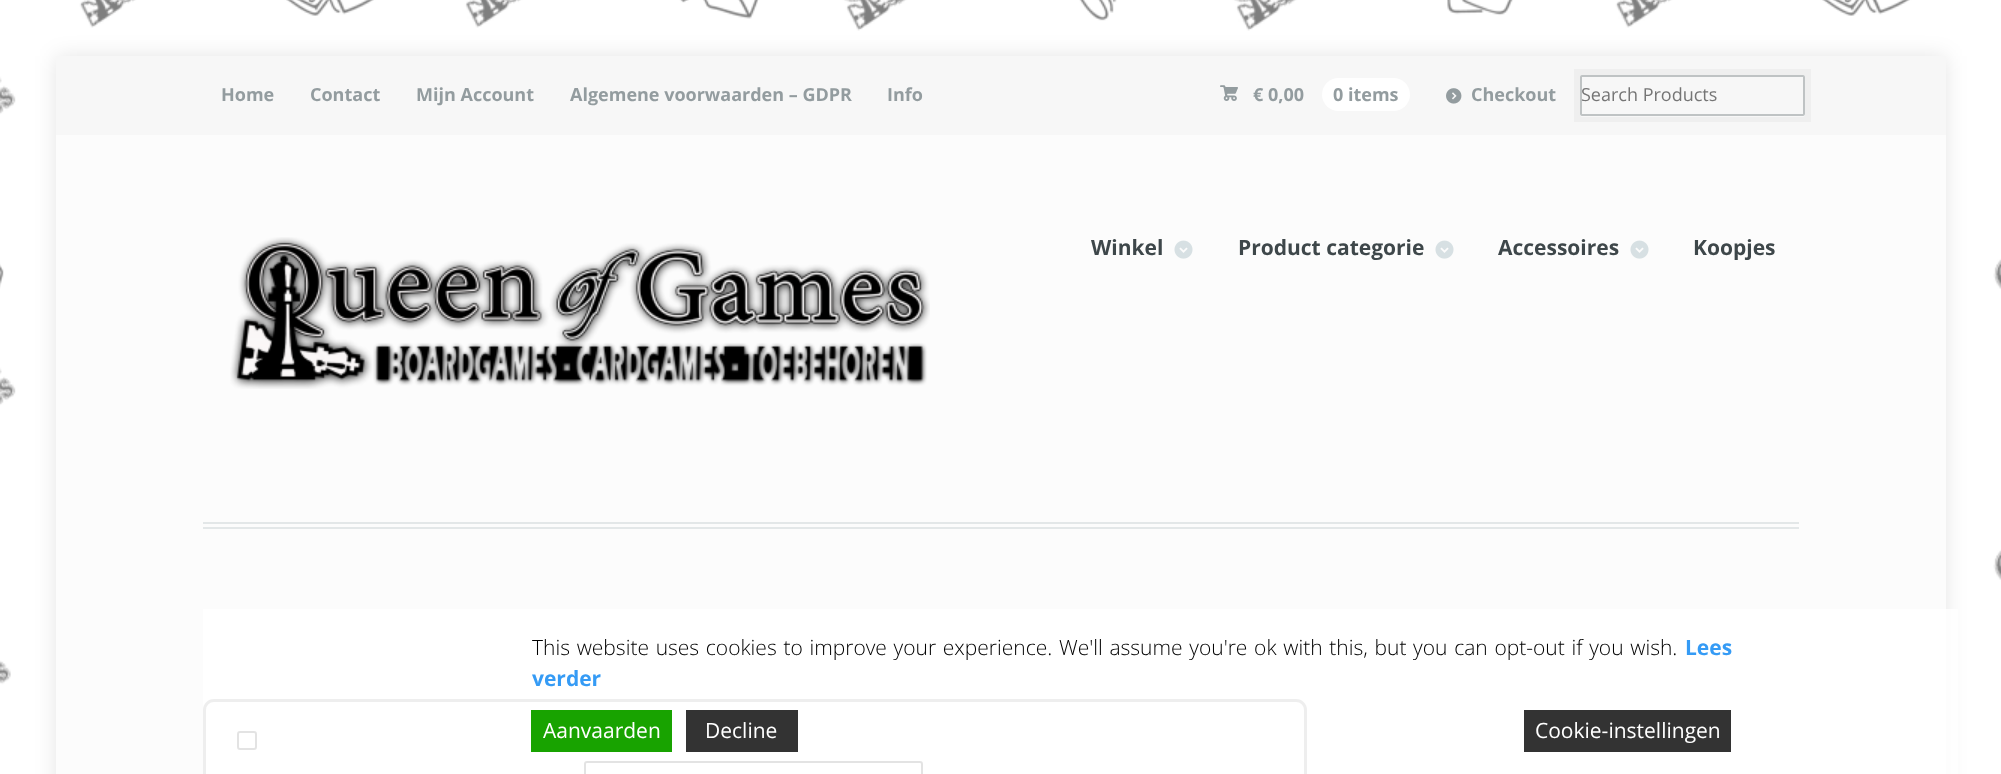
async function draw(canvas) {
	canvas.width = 2001;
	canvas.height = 774;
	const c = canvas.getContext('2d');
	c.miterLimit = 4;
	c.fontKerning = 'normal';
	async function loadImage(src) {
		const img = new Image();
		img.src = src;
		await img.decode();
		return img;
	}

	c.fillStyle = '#fff';
	c.fillRect(0, 0, 2001, 774);
	c.drawImage(await loadImage('img1.png'), 0, 0, 2001, 757);
	c.fillStyle = '#0000001a';
	c.filter = 'blur(10.5px)';
	c.beginPath();
	c.rect(56, 56, 1890, 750);
	c.fill();
	c.filter = 'none';
	c.fillStyle = '#fcfcfc';
	c.fillRect(56, 135, 1890, 639);
	c.fillStyle = '#f7f7f7';
	c.fillRect(56, 56, 1890, 79);
	c.font = 'bold 18px Open Sans';
	c.fillStyle = '#939c9f';
	for (const [text, x, y] of [
		['Home', 221, 101],
		['Contact', 310, 101],
		['Mijn Account', 416, 101],
		['Algemene voorwaarden – GDPR', 570, 101],
		['Info', 887, 101],
	]) {
		c.fillText(text, x, y);
	}
	c.font = '18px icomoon';
	c.fillText('£', 1220, 101);
	c.font = 'bold 18px Open Sans';
	c.fillText('€ 0,00', 1253, 101);
	c.fillStyle = '#fff';
	c.beginPath();
	c.roundRect(1322, 78, 88, 33, 16.5);
	c.fill();
	c.fillStyle = '#939c9f';
	c.fillText('0 items', 1333, 101);
	c.drawImage(await loadImage('img2.png'), 1446, 88, 16, 16);
	c.fillText('Checkout', 1471, 101);
	c.fillStyle = '#fff';
	c.beginPath();
	c.moveTo(1580, 115);
	c.bezierCurveTo(1580, 116, 1581, 117, 1582, 117);
	c.lineTo(1803, 117);
	c.bezierCurveTo(1804, 117, 1805, 116, 1805, 115);
	c.lineTo(1805, 79);
	c.lineTo(1804, 78);
	c.lineTo(1804, 113);
	c.bezierCurveTo(1804, 114, 1803, 116, 1802, 116);
	c.lineTo(1582, 116);
	c.closePath();
	c.fill();
	c.strokeStyle = '#00000008';
	c.lineWidth = 6;
	c.strokeRect(1577, 72, 231, 47);
	c.fillStyle = '#f7f7f7';
	c.beginPath();
	c.roundRect(1581, 76, 223, 39, 1);
	c.fill();
	c.strokeStyle = '#bfc3c4';
	c.lineWidth = 2;
	c.stroke();
	c.font = '18px Open Sans';
	c.fillStyle = '#757575';
	c.fillText('Search Products', 1581, 101);
	c.fillStyle = '#e3e7e8';
	c.fillRect(203, 522, 1596, 2);
	c.fillRect(203, 527, 1596, 2);
	c.drawImage(await loadImage('img3.png'), 230, 237, 700, 152);
	c.font = 'bold 21px Open Sans';
	c.fillStyle = '#3e474a';
	c.fillText('Winkel', 1091, 255);
	c.drawImage(await loadImage('img4.png'), 1174, 240, 19, 19);
	c.fillText('Product categorie', 1238, 255);
	c.drawImage(await loadImage('img4.png'), 1435, 240, 19, 19);
	c.fillText('Accessoires', 1498, 255);
	c.drawImage(await loadImage('img4.png'), 1630, 240, 19, 19);
	c.fillText('Koopjes', 1693, 255);
	c.fillStyle = '#fff';
	c.beginPath();
	c.moveTo(213, 704);
	c.lineTo(1296, 704);
	c.bezierCurveTo(1300, 704, 1304, 707, 1304, 711);
	c.lineTo(1304, 710);
	c.bezierCurveTo(1304, 706, 1300, 702, 1296, 702);
	c.lineTo(214, 702);
	c.bezierCurveTo(210, 702, 206, 706, 206, 710);
	c.lineTo(206, 711);
	c.bezierCurveTo(206, 707, 209, 704, 213, 704);
	c.closePath();
	c.fill();
	c.beginPath();
	c.roundRect(204.5, 700.5, 1101, 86, 9.5);
	c.strokeStyle = '#aaa';
	c.lineWidth = 3;
	c.stroke();
	c.beginPath();
	c.roundRect(238, 732, 18, 17, 2);
	c.fill();
	c.strokeStyle = '#767676';
	c.lineWidth = 2;
	c.stroke();
	c.beginPath();
	c.roundRect(585, 762, 337, 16, 2);
	c.fill();
	c.stroke();
	c.fillStyle = '#ffffffcc';
	c.fillRect(203, 609, 1755, 165);
	c.wordSpacing = '1.25px';
	c.font = '300 21px Open Sans';
	c.fillStyle = '#000';
	c.fillText('This website uses cookies to improve your experience. We\'ll assume you\'re ok with this, but you can opt-out if you wish.', 532, 655);
	c.wordSpacing = '0px';
	c.font = 'bold 21px Open Sans';
	c.fillStyle = '#359bf5';
	c.fillText('Lees', 1685, 655);
	c.fillText('verder', 532, 686);
	c.fillStyle = '#18a300';
	c.fillRect(531, 710, 141, 42);
	c.font = '21px Open Sans';
	c.fillStyle = '#fff';
	c.fillText('Aanvaarden', 543, 738);
	c.fillStyle = '#333';
	c.fillRect(686, 710, 112, 42);
	c.fillStyle = '#fff';
	c.fillText('Decline', 705, 738);
	c.fillStyle = '#333';
	c.fillRect(1524, 710, 207, 42);
	c.fillStyle = '#fff';
	c.fillText('Cookie-instellingen', 1535, 738);
}

draw(document.querySelector('canvas'));
